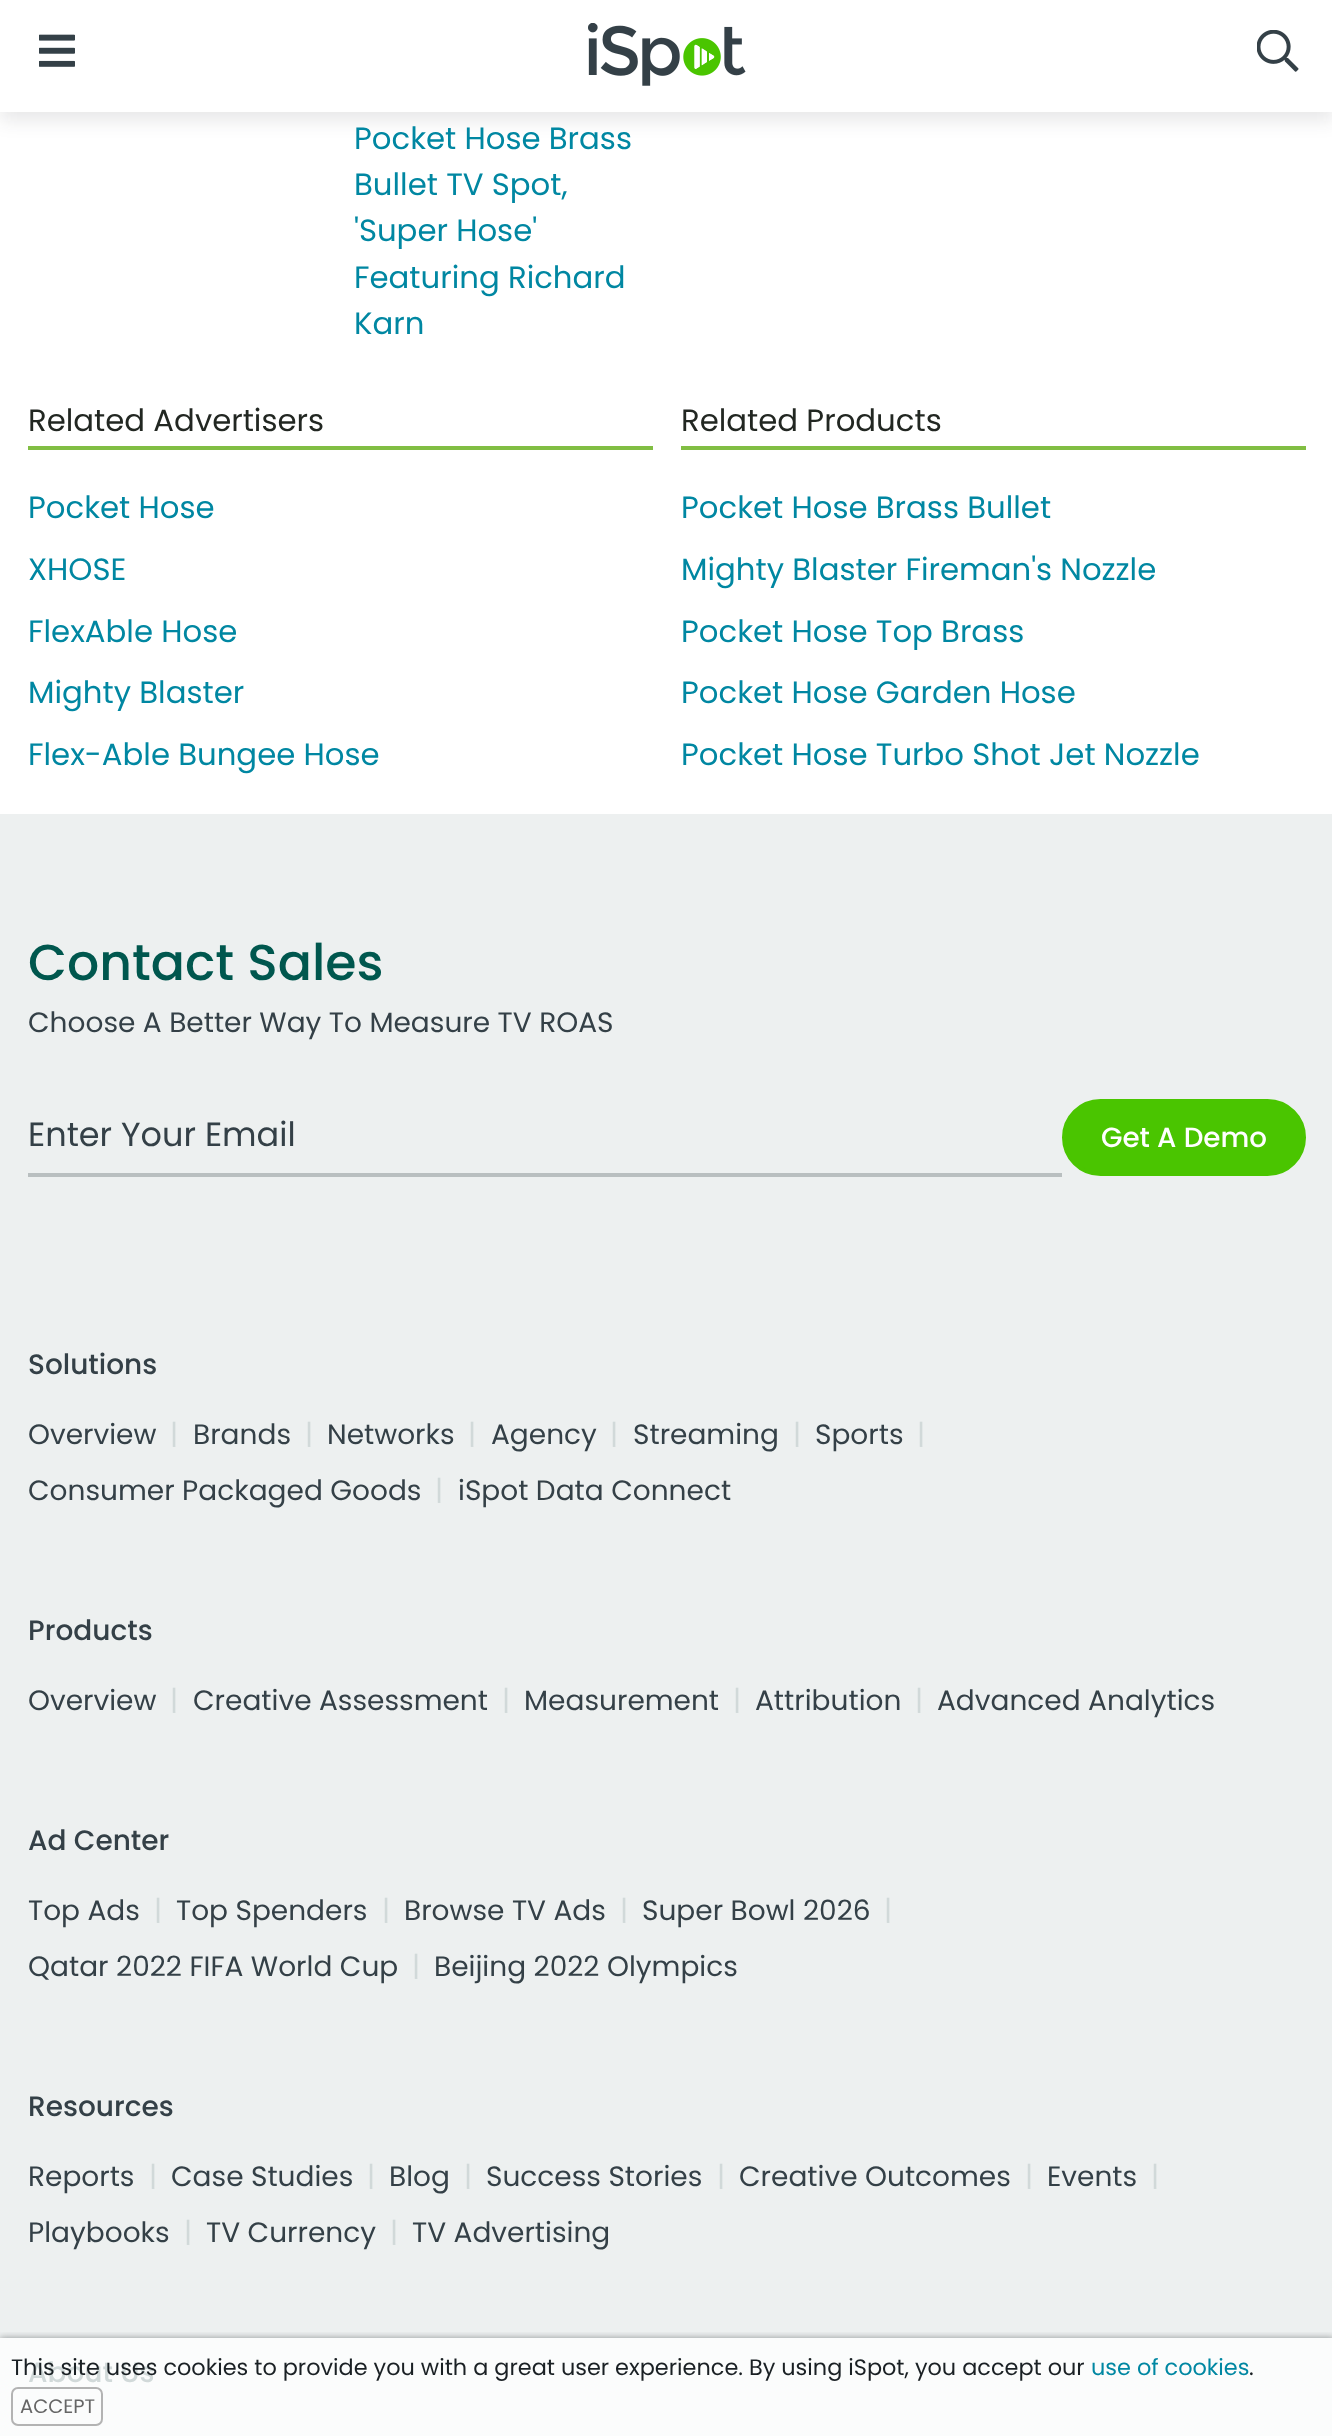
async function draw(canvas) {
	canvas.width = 1332;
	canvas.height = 2436;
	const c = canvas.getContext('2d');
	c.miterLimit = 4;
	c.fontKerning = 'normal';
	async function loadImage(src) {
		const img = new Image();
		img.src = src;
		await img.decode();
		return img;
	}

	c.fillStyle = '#fff';
	c.fillRect(0, 0, 1332, 2436);
	c.fillStyle = '#1a20241a';
	c.filter = 'blur(9px)';
	c.beginPath();
	c.rect(0, 9, 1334, 112);
	c.fill();
	c.filter = 'none';
	c.fillStyle = '#fff';
	c.fillRect(0, 0, 1332, 112);
	c.drawImage(await loadImage('img1.png'), 39, 34, 36, 33);
	c.drawImage(await loadImage('img2.png'), 588, 23, 158, 63);
	c.drawImage(await loadImage('img3.png'), 1257, 30, 42, 42);
	c.font = '30.75px Poppins';
	c.fillStyle = '#0087a2';
	for (const [text, x, y] of [
		['Pocket Hose Brass', 354, 149],
		['Bullet TV Spot,', 354, 195],
		['\'Super Hose\'', 354, 241],
		['Featuring Richard', 354, 288],
		['Karn', 354, 334],
	]) {
		c.fillText(text, x, y);
	}
	c.fillStyle = '#81be43';
	c.fillRect(28, 446, 625, 4);
	c.fillStyle = '#222722';
	c.fillText('Related Advertisers', 28, 431);
	c.fillStyle = '#0087a2';
	for (const [text, x, y] of [
		['Pocket Hose', 28, 518],
		['XHOSE', 28, 580],
		['FlexAble Hose', 28, 642],
		['Mighty Blaster', 28, 703],
		['Flex-Able Bungee Hose', 28, 765],
	]) {
		c.fillText(text, x, y);
	}
	c.fillStyle = '#81be43';
	c.fillRect(681, 446, 625, 4);
	c.fillStyle = '#222722';
	c.fillText('Related Products', 681, 431);
	c.fillStyle = '#0087a2';
	for (const [text, x, y] of [
		['Pocket Hose Brass Bullet', 681, 518],
		['Mighty Blaster Fireman\'s Nozzle', 681, 580],
		['Pocket Hose Top Brass', 681, 642],
		['Pocket Hose Garden Hose', 681, 703],
		['Pocket Hose Turbo Shot Jet Nozzle', 681, 765],
	]) {
		c.fillText(text, x, y);
	}
	c.fillStyle = '#edf0f0';
	c.fillRect(0, 814, 1332, 1524);
	c.fillStyle = '#fbfcfc';
	c.fillRect(0, 2338, 1332, 98);
	c.font = '500 50.5px Poppins';
	c.fillStyle = '#00574e';
	c.fillText('Contact Sales', 28, 980);
	c.font = '28px Poppins';
	c.fillStyle = '#344047';
	c.fillText('Choose A Better Way To Measure TV ROAS', 28, 1032);
	c.fillStyle = '#b9bfc0';
	c.fillRect(28, 1173, 1034, 4);
	c.font = '33.5px Poppins';
	c.fillStyle = '#344047';
	c.fillText('Enter Your Email', 28, 1146);
	c.fillStyle = '#4ac500';
	c.beginPath();
	c.roundRect(1064, 1101, 240, 73, 36.5);
	c.fill();
	c.strokeStyle = '#4ac500';
	c.lineWidth = 4;
	c.stroke();
	c.font = '500 27.75px Poppins';
	c.fillStyle = '#fff';
	c.fillText('Get A Demo', 1101, 1147);
	c.font = '500 28px Poppins';
	c.fillStyle = '#344047';
	c.fillText('Solutions', 28, 1374);
	c.font = '28px Poppins';
	c.fillText('Overview', 28, 1444);
	c.fillStyle = '#d1d9d9';
	c.fillText('|', 170, 1444);
	c.fillStyle = '#344047';
	c.fillText('Brands', 193, 1444);
	c.fillStyle = '#d1d9d9';
	c.fillText('|', 305, 1444);
	c.fillStyle = '#344047';
	c.fillText('Networks', 327, 1444);
	c.fillStyle = '#d1d9d9';
	c.fillText('|', 468, 1444);
	c.fillStyle = '#344047';
	c.fillText('Agency', 491, 1444);
	c.fillStyle = '#d1d9d9';
	c.fillText('|', 610, 1444);
	c.fillStyle = '#344047';
	c.fillText('Streaming', 633, 1444);
	c.fillStyle = '#d1d9d9';
	c.fillText('|', 793, 1444);
	c.fillStyle = '#344047';
	c.fillText('Sports', 815, 1444);
	c.fillStyle = '#d1d9d9';
	c.fillText('|', 917, 1444);
	c.fillStyle = '#344047';
	c.fillText('Consumer Packaged Goods', 28, 1500);
	c.fillStyle = '#d1d9d9';
	c.fillText('|', 435, 1500);
	c.fillStyle = '#344047';
	c.fillText('iSpot Data Connect', 458, 1500);
	c.font = '500 28px Poppins';
	c.fillText('Products', 28, 1640);
	c.font = '28px Poppins';
	c.fillText('Overview', 28, 1710);
	c.fillStyle = '#d1d9d9';
	c.fillText('|', 170, 1710);
	c.fillStyle = '#344047';
	c.fillText('Creative Assessment', 193, 1710);
	c.fillStyle = '#d1d9d9';
	c.fillText('|', 502, 1710);
	c.fillStyle = '#344047';
	c.fillText('Measurement', 524, 1710);
	c.fillStyle = '#d1d9d9';
	c.fillText('|', 733, 1710);
	c.fillStyle = '#344047';
	c.fillText('Attribution', 755, 1710);
	c.fillStyle = '#d1d9d9';
	c.fillText('|', 915, 1710);
	c.fillStyle = '#344047';
	c.fillText('Advanced Analytics', 937, 1710);
	c.font = '500 28px Poppins';
	c.fillText('Ad Center', 28, 1850);
	c.font = '28px Poppins';
	c.fillText('Top Ads', 28, 1920);
	c.fillStyle = '#d1d9d9';
	c.fillText('|', 154, 1920);
	c.fillStyle = '#344047';
	c.fillText('Top Spenders', 176, 1920);
	c.fillStyle = '#d1d9d9';
	c.fillText('|', 382, 1920);
	c.fillStyle = '#344047';
	c.fillText('Browse TV Ads', 404, 1920);
	c.fillStyle = '#d1d9d9';
	c.fillText('|', 620, 1920);
	c.fillStyle = '#344047';
	c.fillText('Super Bowl 2026', 642, 1920);
	c.fillStyle = '#d1d9d9';
	c.fillText('|', 884, 1920);
	c.fillStyle = '#344047';
	c.fillText('Qatar 2022 FIFA World Cup', 28, 1976);
	c.fillStyle = '#d1d9d9';
	c.fillText('|', 412, 1976);
	c.fillStyle = '#344047';
	c.fillText('Beijing 2022 Olympics', 434, 1976);
	c.font = '500 28px Poppins';
	c.fillText('Resources', 28, 2116);
	c.font = '28px Poppins';
	c.fillText('Reports', 28, 2186);
	c.fillStyle = '#d1d9d9';
	c.fillText('|', 149, 2186);
	c.fillStyle = '#344047';
	c.fillText('Case Studies', 171, 2186);
	c.fillStyle = '#d1d9d9';
	c.fillText('|', 367, 2186);
	c.fillStyle = '#344047';
	c.fillText('Blog', 389, 2186);
	c.fillStyle = '#d1d9d9';
	c.fillText('|', 464, 2186);
	c.fillStyle = '#344047';
	c.fillText('Success Stories', 486, 2186);
	c.fillStyle = '#d1d9d9';
	c.fillText('|', 717, 2186);
	c.fillStyle = '#344047';
	c.fillText('Creative Outcomes', 739, 2186);
	c.fillStyle = '#d1d9d9';
	c.fillText('|', 1025, 2186);
	c.fillStyle = '#344047';
	c.fillText('Events', 1047, 2186);
	c.fillStyle = '#d1d9d9';
	c.fillText('|', 1151, 2186);
	c.fillStyle = '#344047';
	c.fillText('Playbooks', 28, 2242);
	c.fillStyle = '#d1d9d9';
	c.fillText('|', 184, 2242);
	c.fillStyle = '#344047';
	c.fillText('TV Currency', 206, 2242);
	c.fillStyle = '#d1d9d9';
	c.fillText('|', 390, 2242);
	c.fillStyle = '#344047';
	c.fillText('TV Advertising', 412, 2242);
	c.font = '500 28px Poppins';
	c.fillStyle = '#d1d9d9';
	c.fillText('About Us', 28, 2382);
	c.save();
	c.beginPath();
	c.rect(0, 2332, 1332, 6);
	c.clip();
	c.fillStyle = '#1a202473';
	c.filter = 'blur(3.5px)';
	c.beginPath();
	c.rect(0, 2338, 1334, 98);
	c.fill();
	c.filter = 'none';
	c.restore();
	c.font = '22.4px Poppins';
	c.fillStyle = '#1a2024';
	c.fillText('This site uses cookies to provide you with a great user experience. By using iSpot, you accept our', 11, 2375);
	c.fillStyle = '#0087a2';
	c.fillText('use of cookies', 1091, 2375);
	c.fillStyle = '#1a2024';
	c.fillText('.', 1249, 2375);
	c.beginPath();
	c.roundRect(12, 2388, 90, 37, 6);
	c.strokeStyle = '#b3b3b3';
	c.lineWidth = 2;
	c.stroke();
	c.font = '19.5px Poppins';
	c.fillStyle = '#666';
	c.fillText('ACCEPT', 20, 2413);
}

draw(document.querySelector('canvas'));
